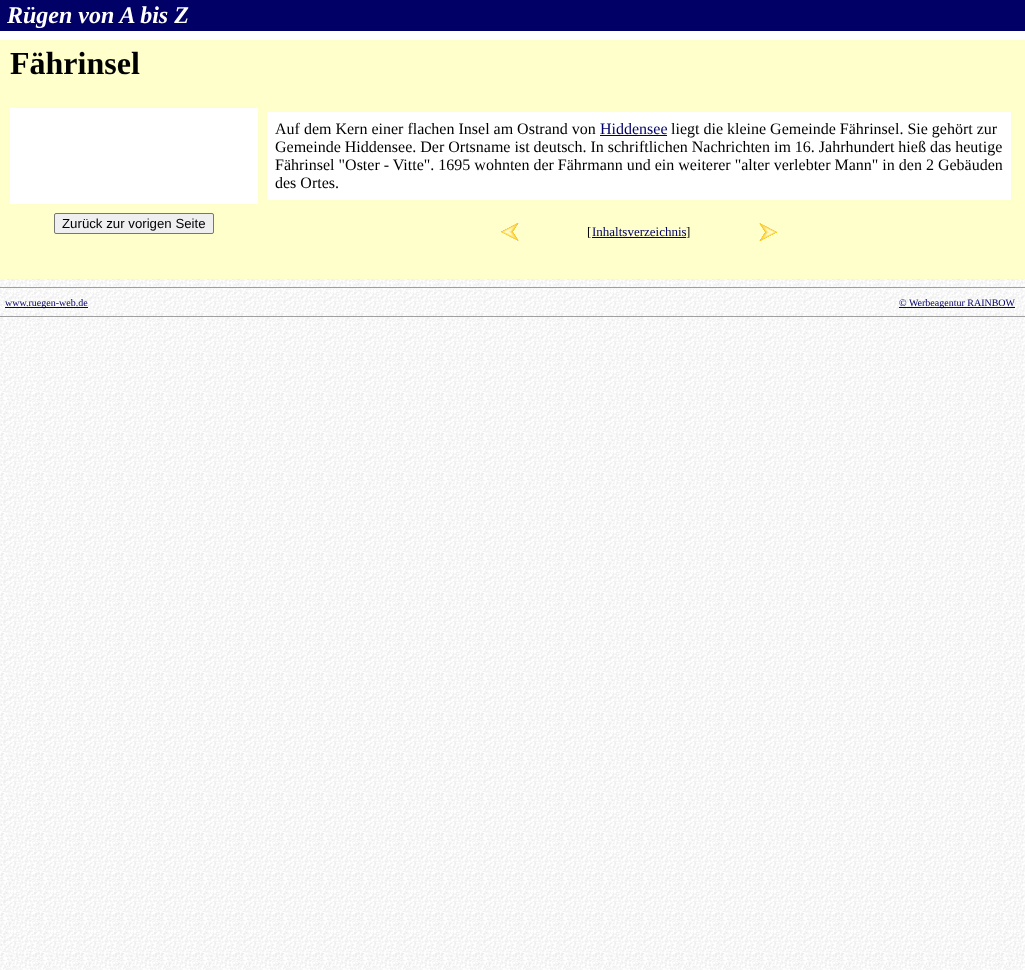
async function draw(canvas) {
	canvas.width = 1025;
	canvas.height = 970;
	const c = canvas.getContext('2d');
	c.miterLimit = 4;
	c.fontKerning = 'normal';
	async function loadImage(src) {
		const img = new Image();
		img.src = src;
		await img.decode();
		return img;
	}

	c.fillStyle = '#fff';
	c.fillRect(0, 0, 1025, 970);
	c.drawImage(await loadImage('img1.png'), 0, 279, 1025, 691);
	c.fillStyle = '#006';
	c.fillRect(0, 0, 1025, 31);
	c.font = 'italic bold 24px Liberation Serif';
	c.fillStyle = '#fff';
	c.fillText('Rügen von A bis Z', 7, 23);
	c.fillStyle = '#ffc';
	c.fillRect(0, 40, 1025, 239);
	c.font = 'bold 32px Liberation Serif';
	c.fillStyle = '#000';
	c.fillText('Fährinsel', 10, 74);
	c.fillStyle = '#fff';
	c.fillRect(10, 108, 248, 96);
	c.fillRect(267, 112, 744, 88);
	c.font = '16px Liberation Serif';
	c.fillStyle = '#000';
	c.fillText('Auf dem Kern einer flachen Insel am Ostrand von', 275, 134);
	c.fillStyle = '#006';
	c.fillText('Hiddensee', 600, 134);
	c.fillRect(600, 135, 67, 1);
	c.fillStyle = '#000';
	for (const [text, x, y] of [
		['liegt die kleine Gemeinde Fährinsel. Sie gehört zur', 671, 134],
		['Gemeinde Hiddensee. Der Ortsname ist deutsch. In schriftlichen Nachrichten im 16. Jahrhundert hieß das heutige', 275, 152],
		['Fährinsel "Oster - Vitte". 1695 wohnten der Fährmann und ein weiterer "alter verlebter Mann" in den 2 Gebäuden', 275, 170],
		['des Ortes.', 275, 188],
	]) {
		c.fillText(text, x, y);
	}
	c.fillStyle = '#efefef';
	c.beginPath();
	c.roundRect(54.5, 213.5, 159, 20, 1.5);
	c.fill();
	c.strokeStyle = '#767676';
	c.stroke();
	c.font = '13.25px Liberation Sans';
	c.fillStyle = '#000';
	c.fillText('Zurück zur vorigen Seite', 62, 228);
	c.drawImage(await loadImage('img2.png'), 501, 222, 18, 19);
	c.font = '13px Liberation Serif';
	c.fillText('[', 587, 236);
	c.fillStyle = '#006';
	c.fillRect(592, 237, 94, 1);
	c.fillText('Inhaltsverzeichnis', 592, 236);
	c.fillStyle = '#000';
	c.fillText(']', 686, 236);
	c.drawImage(await loadImage('img3.png'), 759, 223, 18, 19);
	c.fillStyle = '#9f9f9f';
	c.fillRect(0, 287, 1025, 1);
	c.fillStyle = '#006';
	c.fillRect(5, 307, 83, 1);
	c.font = '10px Liberation Serif';
	c.fillText('www.ruegen-web.de', 5, 306);
	c.fillRect(899, 307, 116, 1);
	c.fillText('© Werbeagentur RAINBOW', 899, 306);
	c.fillStyle = '#9f9f9f';
	c.fillRect(0, 316, 1025, 1);
}

draw(document.querySelector('canvas'));
